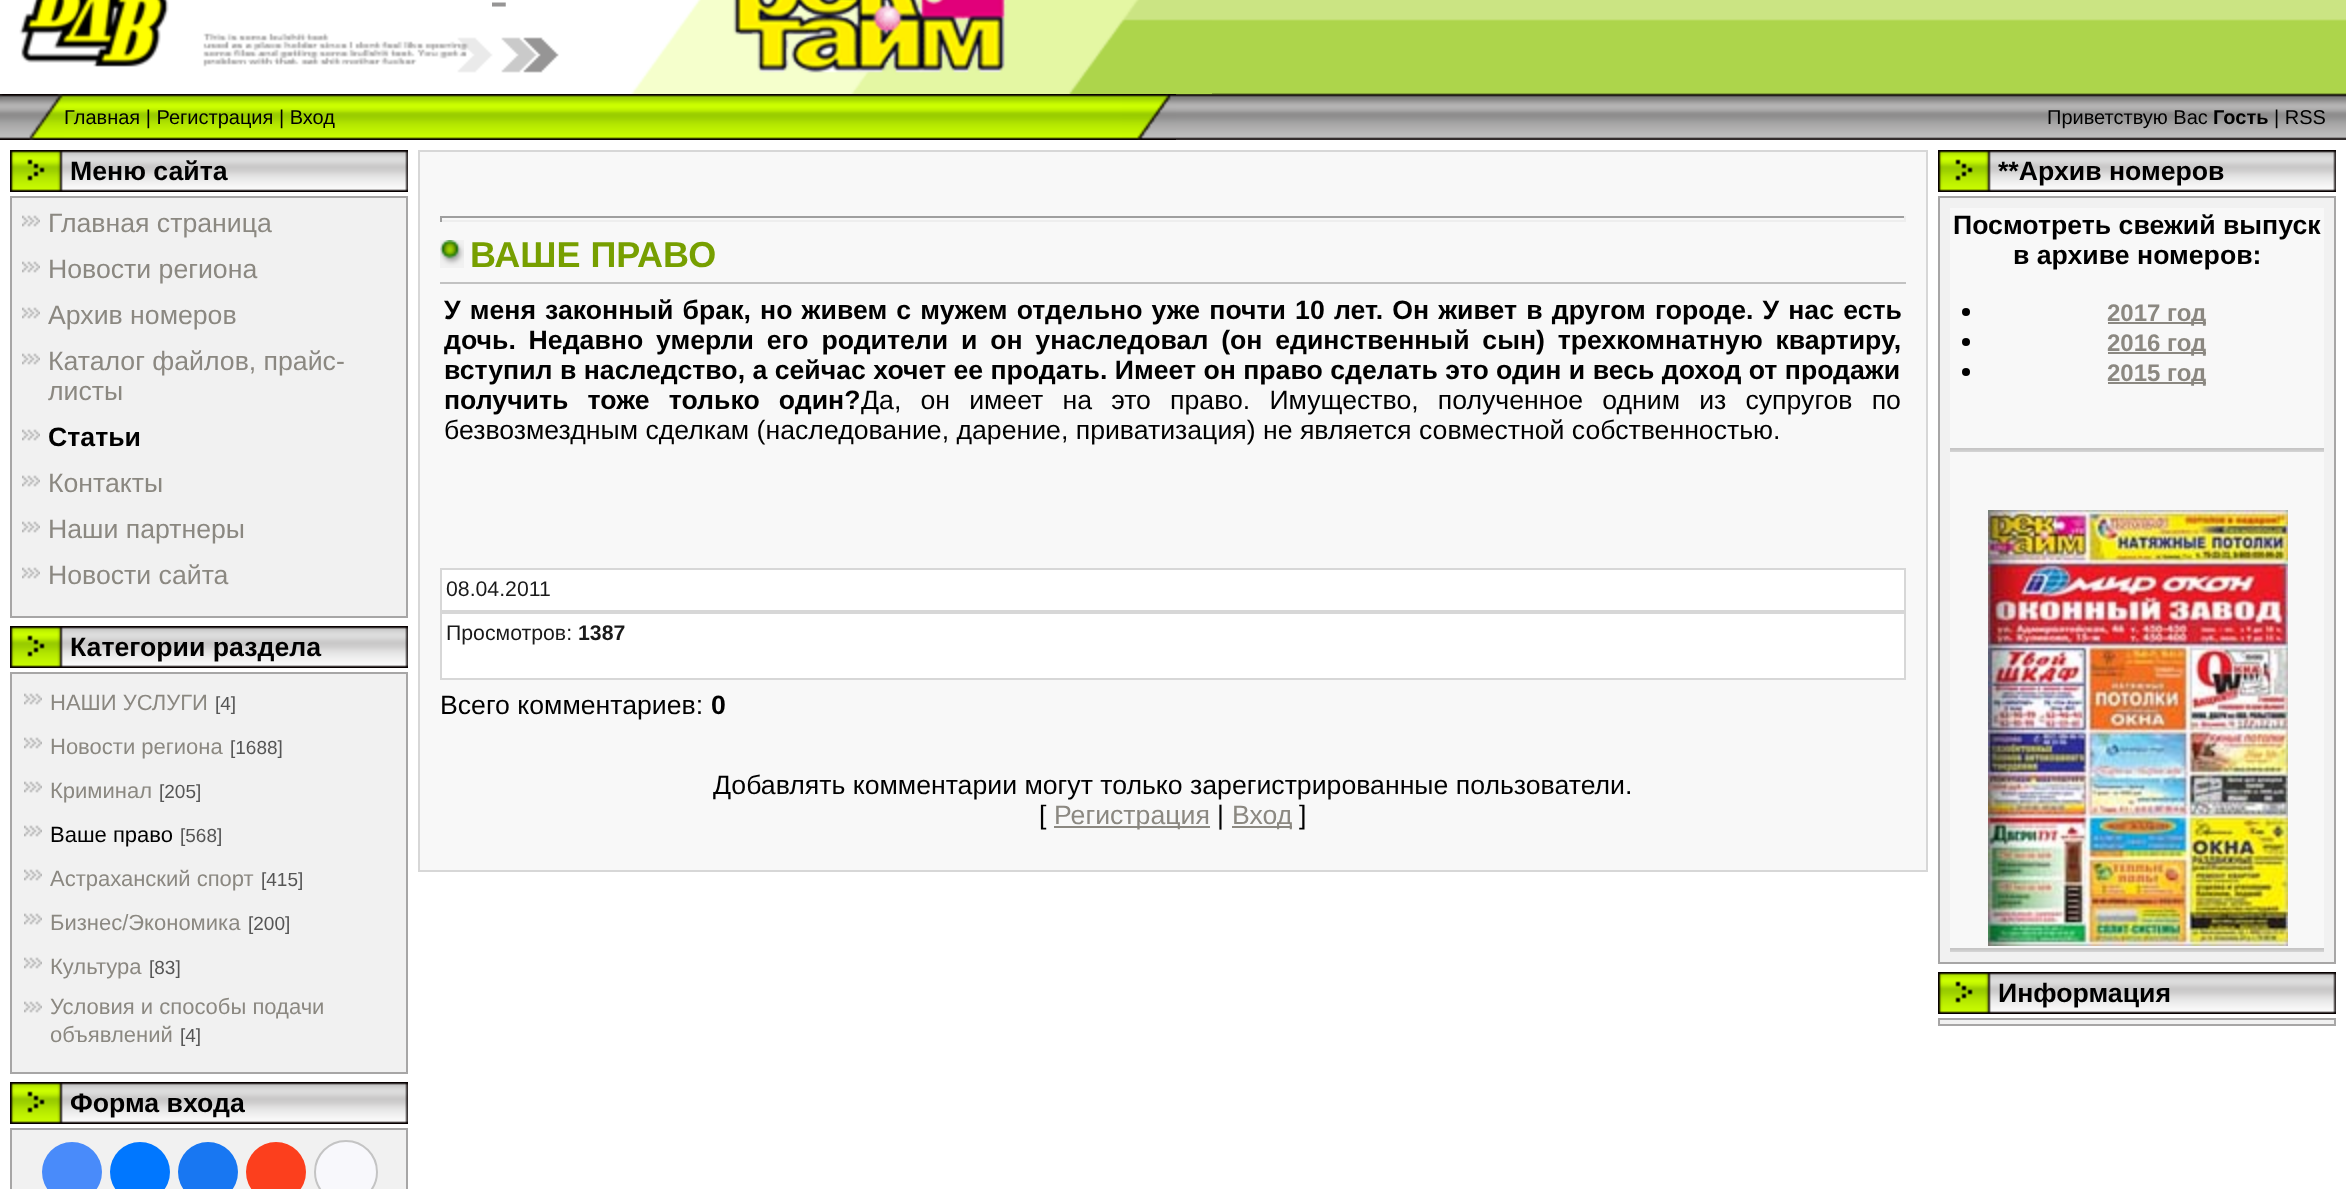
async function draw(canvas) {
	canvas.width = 2346;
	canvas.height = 1189;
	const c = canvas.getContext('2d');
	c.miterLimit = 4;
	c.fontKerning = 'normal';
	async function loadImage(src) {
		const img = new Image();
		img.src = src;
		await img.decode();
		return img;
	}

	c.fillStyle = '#fff';
	c.fillRect(0, 0, 2346, 1189);
	c.drawImage(await loadImage('img1.png'), 1176, 0, 1170, 140);
	c.drawImage(await loadImage('img2.png'), 0, 0, 202, 94);
	c.drawImage(await loadImage('img3.png'), 202, 0, 1010, 94);
	c.font = '53px Liberation Serif';
	c.fillStyle = '#969595';
	c.fillText('-', 490, 17);
	c.drawImage(await loadImage('img4.png'), 0, 94, 64, 46);
	c.drawImage(await loadImage('img5.png'), 64, 94, 1058, 46);
	c.font = '20px Liberation Sans';
	c.fillStyle = '#000';
	c.fillText('Главная | Регистрация | Вход', 64, 124);
	c.drawImage(await loadImage('img6.png'), 1122, 94, 54, 46);
	c.fillText('Приветствую Вас', 2047, 124);
	c.font = 'bold 20px Liberation Sans';
	c.fillText('Гость', 2213, 124);
	c.font = '20px Liberation Sans';
	c.fillText('| RSS', 2274, 124);
	c.drawImage(await loadImage('img7.png'), 10, 150, 398, 42);
	c.font = 'bold 26.67px Liberation Sans';
	c.fillText('Меню сайта', 70, 180);
	c.fillStyle = '#f1f1f1';
	c.beginPath();
	c.rect(11, 197, 396, 420);
	c.fill();
	c.strokeStyle = '#a7a6a6';
	c.lineWidth = 2;
	c.stroke();
	c.drawImage(await loadImage('img8.png'), 22, 215, 18, 12);
	c.font = '26.67px Liberation Sans';
	c.fillStyle = '#8b8881';
	c.fillText('Главная страница', 48, 232);
	c.drawImage(await loadImage('img8.png'), 22, 261, 18, 12);
	c.fillText('Новости региона', 48, 278);
	c.drawImage(await loadImage('img8.png'), 22, 307, 18, 12);
	c.fillText('Архив номеров', 48, 324);
	c.drawImage(await loadImage('img8.png'), 22, 353, 18, 12);
	c.fillText('Каталог файлов, прайс-', 48, 370);
	c.fillText('листы', 48, 400);
	c.drawImage(await loadImage('img8.png'), 22, 429, 18, 12);
	c.font = 'bold 26.67px Liberation Sans';
	c.fillStyle = '#000';
	c.fillText('Статьи', 48, 446);
	c.drawImage(await loadImage('img8.png'), 22, 475, 18, 12);
	c.font = '26.67px Liberation Sans';
	c.fillStyle = '#8b8881';
	c.fillText('Контакты', 48, 492);
	c.drawImage(await loadImage('img8.png'), 22, 521, 18, 12);
	c.fillText('Наши партнеры', 48, 538);
	c.drawImage(await loadImage('img8.png'), 22, 567, 18, 12);
	c.fillText('Новости сайта', 48, 584);
	c.drawImage(await loadImage('img7.png'), 10, 626, 398, 42);
	c.font = 'bold 26.67px Liberation Sans';
	c.fillStyle = '#000';
	c.fillText('Категории раздела', 70, 656);
	c.fillStyle = '#f1f1f1';
	c.beginPath();
	c.rect(11, 673, 396, 400);
	c.fill();
	c.stroke();
	c.drawImage(await loadImage('img8.png'), 24, 693, 18, 12);
	c.font = '22px Liberation Sans';
	c.fillStyle = '#8b8881';
	c.fillText('НАШИ УСЛУГИ', 50, 710);
	c.font = '19px Liberation Sans';
	c.fillStyle = '#555';
	c.fillText('[4]', 215, 710);
	c.drawImage(await loadImage('img8.png'), 24, 737, 18, 12);
	c.font = '22px Liberation Sans';
	c.fillStyle = '#8b8881';
	c.fillText('Новости региона', 50, 754);
	c.font = '19px Liberation Sans';
	c.fillStyle = '#555';
	c.fillText('[1688]', 230, 754);
	c.drawImage(await loadImage('img8.png'), 24, 781, 18, 12);
	c.font = '22px Liberation Sans';
	c.fillStyle = '#8b8881';
	c.fillText('Криминал', 50, 798);
	c.font = '19px Liberation Sans';
	c.fillStyle = '#555';
	c.fillText('[205]', 159, 798);
	c.drawImage(await loadImage('img8.png'), 24, 825, 18, 12);
	c.font = '22px Liberation Sans';
	c.fillStyle = '#000';
	c.fillText('Ваше право', 50, 842);
	c.font = '19px Liberation Sans';
	c.fillStyle = '#555';
	c.fillText('[568]', 180, 842);
	c.drawImage(await loadImage('img8.png'), 24, 869, 18, 12);
	c.font = '22px Liberation Sans';
	c.fillStyle = '#8b8881';
	c.fillText('Астраханский спорт', 50, 886);
	c.font = '19px Liberation Sans';
	c.fillStyle = '#555';
	c.fillText('[415]', 261, 886);
	c.drawImage(await loadImage('img8.png'), 24, 913, 18, 12);
	c.font = '22px Liberation Sans';
	c.fillStyle = '#8b8881';
	c.fillText('Бизнес/Экономика', 50, 930);
	c.font = '19px Liberation Sans';
	c.fillStyle = '#555';
	c.fillText('[200]', 248, 930);
	c.drawImage(await loadImage('img8.png'), 24, 957, 18, 12);
	c.font = '22px Liberation Sans';
	c.fillStyle = '#8b8881';
	c.fillText('Культура', 50, 974);
	c.font = '19px Liberation Sans';
	c.fillStyle = '#555';
	c.fillText('[83]', 149, 974);
	c.drawImage(await loadImage('img8.png'), 24, 1001, 18, 12);
	c.font = '22px Liberation Sans';
	c.fillStyle = '#8b8881';
	c.fillText('Условия и способы подачи', 50, 1014);
	c.fillText('объявлений', 50, 1042);
	c.font = '19px Liberation Sans';
	c.fillStyle = '#555';
	c.fillText('[4]', 180, 1042);
	c.drawImage(await loadImage('img7.png'), 10, 1082, 398, 42);
	c.font = 'bold 26.67px Liberation Sans';
	c.fillStyle = '#000';
	c.fillText('Форма входа', 70, 1112);
	c.fillStyle = '#f1f1f1';
	c.beginPath();
	c.rect(11, 1129, 396, 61);
	c.fill();
	c.stroke();
	c.fillStyle = '#498bfa';
	c.beginPath();
	c.arc(72, 1172, 30, 0, 2 * Math.PI);
	c.fill();
	c.fillStyle = '#07f';
	c.beginPath();
	c.arc(140, 1172, 30, 0, 2 * Math.PI);
	c.fill();
	c.fillStyle = '#1877f2';
	c.beginPath();
	c.arc(208, 1172, 30, 0, 2 * Math.PI);
	c.fill();
	c.fillStyle = '#fc3f1d';
	c.beginPath();
	c.arc(276, 1172, 30, 0, 2 * Math.PI);
	c.fill();
	c.fillStyle = '#f8f8fc';
	c.beginPath();
	c.arc(346, 1172, 31, 0, 2 * Math.PI);
	c.fill();
	c.strokeStyle = '#c4c4c4';
	c.stroke();
	c.strokeStyle = '#d7d7d7';
	c.strokeRect(419, 151, 1508, 720);
	for (const [x, y, w, h, color] of [
		[420, 152, 1506, 718, '#f8f8f8'],
		[440, 216, 1466, 2, '#9f9f9f'],
		[1904, 216, 2, 6, '#eee'],
		[440, 220, 1466, 2, '#eee'],
		[440, 216, 2, 6, '#9f9f9f'],
	]) {
		c.fillStyle = color;
		c.fillRect(x, y, w, h);
	}
	c.drawImage(await loadImage('img9.png'), 440, 240, 24, 28);
	c.font = 'bold 36px Liberation Sans';
	c.fillStyle = '#779f00';
	c.fillText('ВАШЕ ПРАВО', 470, 267);
	c.fillStyle = '#c2c2c2';
	c.fillRect(440, 282, 1466, 2);
	c.wordSpacing = '1.75px';
	c.font = 'bold 26.67px Liberation Sans';
	c.fillStyle = '#000';
	c.fillText('У меня законный брак, но живем с мужем отдельно уже почти 10 лет. Он живет в другом городе. У нас есть', 444, 319);
	c.wordSpacing = '5.4px';
	c.fillText('дочь. Недавно умерли его родители и он унаследовал (он единственный сын) трехкомнатную квартиру,', 444, 349);
	c.wordSpacing = '0px';
	c.fillText('вступил в наследство, а сейчас хочет ее продать. Имеет он право сделать это один и весь доход от продажи', 444, 379);
	c.wordSpacing = '11.75px';
	c.fillText('получить тоже только один?', 444, 409);
	c.font = '26.67px Liberation Sans';
	c.fillText('Да, он имеет на это право. Имущество, полученное одним из супругов по', 861, 409);
	c.wordSpacing = '0px';
	c.fillText('безвозмездным сделкам (наследование, дарение, приватизация) не является совместной собственностью.', 444, 439);
	c.fillStyle = '#fff';
	c.beginPath();
	c.rect(441, 569, 1464, 42);
	c.fill();
	c.stroke();
	c.font = '21.25px Liberation Sans';
	c.fillStyle = '#1a1a1a';
	c.fillText('08.04.2011', 446, 596);
	c.fillStyle = '#fff';
	c.beginPath();
	c.rect(441, 613, 1464, 66);
	c.fill();
	c.stroke();
	c.fillStyle = '#1a1a1a';
	c.fillText('Просмотров:', 446, 640);
	c.font = 'bold 21.25px Liberation Sans';
	c.fillText('1387', 578, 640);
	c.font = '26.67px Liberation Sans';
	c.fillStyle = '#000';
	c.fillText('Всего комментариев:', 440, 714);
	c.font = 'bold 26.67px Liberation Sans';
	c.fillText('0', 711, 714);
	c.font = '26.67px Liberation Sans';
	c.fillText('Добавлять комментарии могут только зарегистрированные пользователи.', 713, 794);
	c.fillText('[', 1039, 824);
	c.fillStyle = '#8b8881';
	c.fillRect(1054, 826, 156, 2);
	c.fillText('Регистрация', 1054, 824);
	c.fillStyle = '#000';
	c.fillText('|', 1217, 824);
	c.fillStyle = '#8b8881';
	c.fillRect(1232, 826, 60, 2);
	c.fillText('Вход', 1232, 824);
	c.fillStyle = '#000';
	c.fillText(']', 1299, 824);
	c.drawImage(await loadImage('img7.png'), 1938, 150, 398, 42);
	c.font = 'bold 26.67px Liberation Sans';
	c.fillText('**Архив номеров', 1998, 180);
	c.fillStyle = '#f1f1f1';
	c.beginPath();
	c.rect(1939, 197, 396, 766);
	c.fill();
	c.strokeStyle = '#a7a6a6';
	c.stroke();
	c.fillStyle = '#f8f8f8';
	c.fillRect(1950, 208, 374, 240);
	c.fillStyle = '#000';
	c.fillText('Посмотреть свежий выпуск', 1953, 234);
	c.fillText('в архиве номеров:', 2013, 264);
	c.beginPath();
	c.arc(1966, 312, 4, 0, 2 * Math.PI);
	c.fill();
	c.fillStyle = '#8b8881';
	c.fillRect(2108, 322, 98, 2);
	c.font = 'bold 24px Liberation Sans';
	c.fillText('2017 год', 2107, 321);
	c.fillStyle = '#000';
	c.beginPath();
	c.arc(1966, 342, 4, 0, 2 * Math.PI);
	c.fill();
	c.fillStyle = '#8b8881';
	c.fillRect(2108, 352, 98, 2);
	c.fillText('2016 год', 2107, 351);
	c.fillStyle = '#000';
	c.beginPath();
	c.arc(1966, 372, 4, 0, 2 * Math.PI);
	c.fill();
	c.fillStyle = '#8b8881';
	c.fillRect(2108, 382, 98, 2);
	c.fillText('2015 год', 2107, 381);
	c.drawImage(await loadImage('img10.png'), 1950, 448, 374, 4);
	c.fillStyle = '#f8f8f8';
	c.fillRect(1950, 452, 374, 496);
	c.drawImage(await loadImage('img11.png'), 1988, 510, 300, 436);
	c.drawImage(await loadImage('img10.png'), 1950, 948, 374, 4);
	c.drawImage(await loadImage('img7.png'), 1938, 972, 398, 42);
	c.font = 'bold 26.67px Liberation Sans';
	c.fillStyle = '#000';
	c.fillText('Информация', 1998, 1002);
	c.fillStyle = '#f1f1f1';
	c.beginPath();
	c.rect(1939, 1019, 396, 6);
	c.fill();
	c.stroke();
}

draw(document.querySelector('canvas'));
